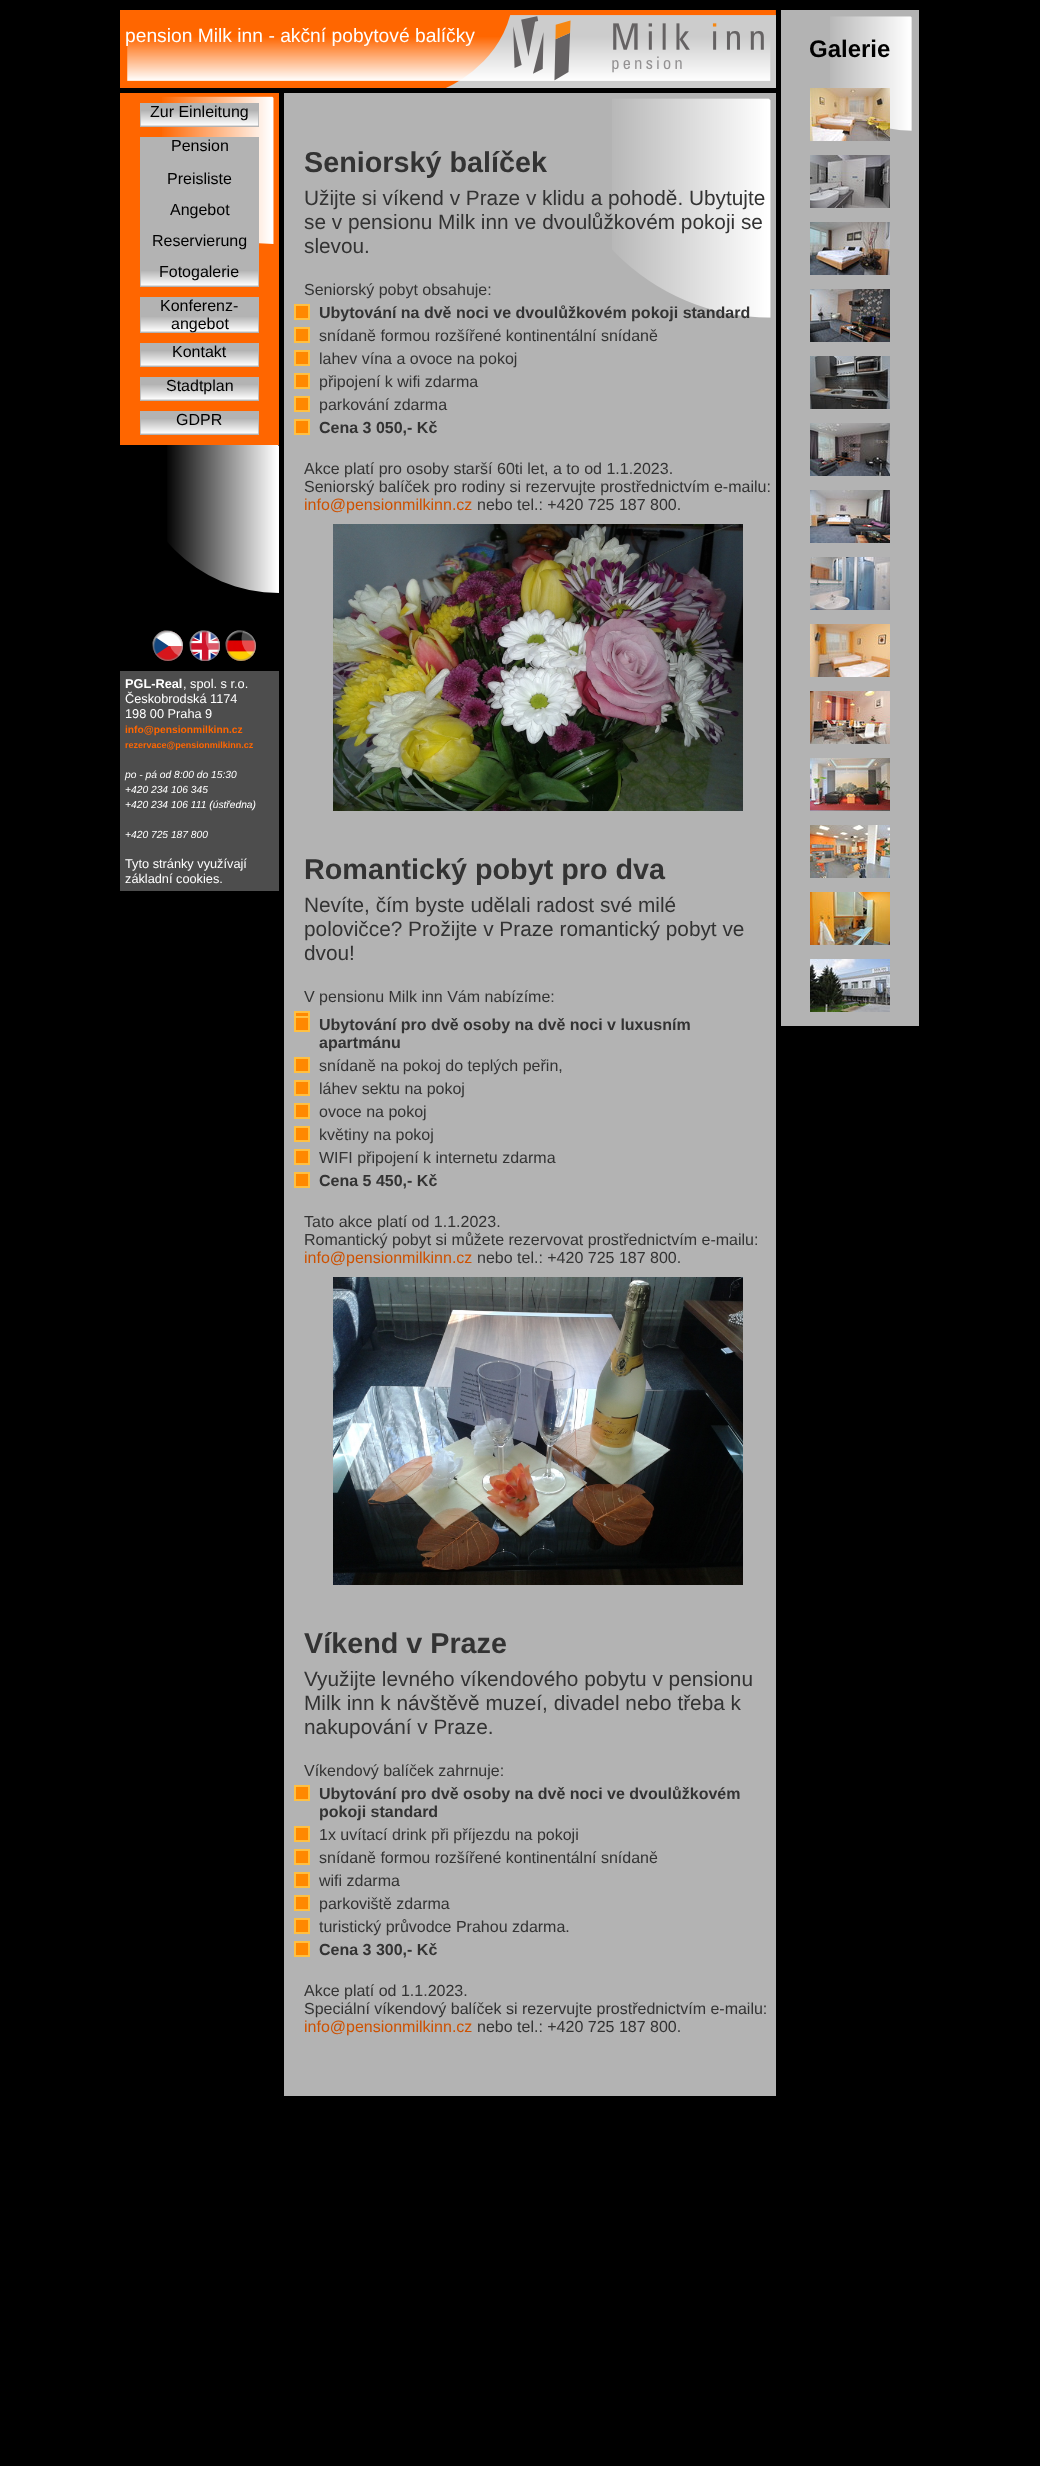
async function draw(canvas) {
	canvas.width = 1040;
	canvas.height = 2466;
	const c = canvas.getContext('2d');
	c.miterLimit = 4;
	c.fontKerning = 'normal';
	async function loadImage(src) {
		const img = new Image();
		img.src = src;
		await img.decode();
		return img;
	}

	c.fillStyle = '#000';
	c.fillRect(0, 0, 1040, 2466);
	c.drawImage(await loadImage('img1.png'), 120, 10, 656, 78);
	c.font = '19.25px Liberation Sans';
	c.fillStyle = '#fff';
	c.fillText('pension Milk inn - akční pobytové balíčky', 125, 42);
	c.fillStyle = '#f60';
	c.fillRect(120, 93, 159, 352);
	c.drawImage(await loadImage('img2.png'), 162, 96, 112, 148);
	c.fillStyle = '#b3b3b3';
	c.fillRect(140, 103, 119, 24);
	c.drawImage(await loadImage('img3.png'), 140, 111, 119, 15);
	c.font = '16px Liberation Sans';
	c.fillStyle = '#000';
	c.fillText('Zur Einleitung', 150, 117);
	c.fillStyle = '#b3b3b3';
	c.fillRect(140, 137, 119, 150);
	c.drawImage(await loadImage('img3.png'), 140, 271, 119, 15);
	c.fillStyle = '#000';
	for (const [text, x, y] of [
		['Pension', 171, 151],
		['Preisliste', 167, 184],
		['Angebot', 170, 215],
		['Reservierung', 152, 246],
		['Fotogalerie', 159, 277],
	]) {
		c.fillText(text, x, y);
	}
	c.fillStyle = '#b3b3b3';
	c.fillRect(140, 297, 119, 36);
	c.drawImage(await loadImage('img3.png'), 140, 317, 119, 15);
	c.fillStyle = '#000';
	c.fillText('Konferenz-', 160, 311);
	c.fillText('angebot', 171, 329);
	c.fillStyle = '#b3b3b3';
	c.fillRect(140, 343, 119, 24);
	c.drawImage(await loadImage('img3.png'), 140, 351, 119, 15);
	c.fillStyle = '#000';
	c.fillText('Kontakt', 172, 357);
	c.fillStyle = '#b3b3b3';
	c.fillRect(140, 377, 119, 24);
	c.drawImage(await loadImage('img3.png'), 140, 385, 119, 15);
	c.fillStyle = '#000';
	c.fillText('Stadtplan', 166, 391);
	c.fillStyle = '#b3b3b3';
	c.fillRect(140, 411, 119, 24);
	c.drawImage(await loadImage('img3.png'), 140, 419, 119, 15);
	c.fillStyle = '#000';
	c.fillText('GDPR', 176, 425);
	c.drawImage(await loadImage('img4.png'), 167, 445, 112, 148);
	c.drawImage(await loadImage('img5.png'), 152, 630, 31, 31);
	c.drawImage(await loadImage('img6.png'), 189, 630, 31, 31);
	c.drawImage(await loadImage('img7.png'), 225, 630, 31, 31);
	c.fillStyle = '#4d4d4d';
	c.fillRect(120, 671, 159, 220);
	c.font = 'bold 12.75px Liberation Sans';
	c.fillStyle = '#fff';
	c.fillText('PGL-Real', 125, 688);
	c.font = '12.75px Liberation Sans';
	for (const [text, x, y] of [
		[', spol. s r.o.', 183, 688],
		['Českobrodská 1174', 125, 703],
		['198 00 Praha 9', 125, 718],
	]) {
		c.fillText(text, x, y);
	}
	c.font = 'bold 10.25px Liberation Sans';
	c.fillStyle = '#f60';
	c.fillText('info@pensionmilkinn.cz', 125, 733);
	c.font = 'bold 9px Liberation Sans';
	c.fillText('rezervace@pensionmilkinn.cz', 125, 748);
	c.font = 'italic 10.25px Liberation Sans';
	c.fillStyle = '#fff';
	for (const [text, x, y] of [
		['po - pá od 8:00 do 15:30', 125, 778],
		['+420 234 106 345', 125, 793],
		['+420 234 106 111 (ústředna)', 125, 808],
		['+420 725 187 800', 125, 838],
	]) {
		c.fillText(text, x, y);
	}
	c.font = '12.75px Liberation Sans';
	c.fillText('Tyto stránky využívají', 125, 868);
	c.fillText('základní cookies.', 125, 883);
	c.fillStyle = '#b3b3b3';
	c.fillRect(284, 93, 492, 2003);
	c.drawImage(await loadImage('img8.png'), 612, 98, 159, 220);
	c.font = 'bold 28.75px Liberation Sans';
	c.fillStyle = '#333';
	c.fillText('Seniorský balíček', 304, 172);
	c.font = '20.8px Liberation Sans';
	for (const [text, x, y] of [
		['Užijte si víkend v Praze v klidu a pohodě. Ubytujte', 304, 205],
		['se v pensionu Milk inn ve dvoulůžkovém pokoji se', 304, 229],
		['slevou.', 304, 253],
	]) {
		c.fillText(text, x, y);
	}
	c.font = '16px Liberation Sans';
	c.fillText('Seniorský pobyt obsahuje:', 304, 295);
	c.drawImage(await loadImage('img9.png'), 294, 304, 16, 16);
	c.font = 'bold 16px Liberation Sans';
	c.fillText('Ubytování na dvě noci ve dvoulůžkovém pokoji standard', 319, 318);
	c.drawImage(await loadImage('img9.png'), 294, 327, 16, 16);
	c.font = '16px Liberation Sans';
	c.fillText('snídaně formou rozšířené kontinentální snídaně', 319, 341);
	c.drawImage(await loadImage('img9.png'), 294, 350, 16, 16);
	c.fillText('lahev vína a ovoce na pokoj', 319, 364);
	c.drawImage(await loadImage('img9.png'), 294, 373, 16, 16);
	c.fillText('připojení k wifi zdarma', 319, 387);
	c.drawImage(await loadImage('img9.png'), 294, 396, 16, 16);
	c.fillText('parkování zdarma', 319, 410);
	c.drawImage(await loadImage('img9.png'), 294, 419, 16, 16);
	c.font = 'bold 16px Liberation Sans';
	c.fillText('Cena 3 050,- Kč', 319, 433);
	c.font = '16px Liberation Sans';
	c.fillText('Akce platí pro osoby starší 60ti let, a to od 1.1.2023.', 304, 474);
	c.fillText('Seniorský balíček pro rodiny si rezervujte prostřednictvím e-mailu:', 304, 492);
	c.fillStyle = '#cd5100';
	c.fillText('info@pensionmilkinn.cz', 304, 510);
	c.fillStyle = '#333';
	c.fillText('nebo tel.: +420 725 187 800.', 477, 510);
	c.drawImage(await loadImage('img10.png'), 333, 524, 410, 287);
	c.font = 'bold 28.75px Liberation Sans';
	c.fillText('Romantický pobyt pro dva', 304, 879);
	c.font = '20.8px Liberation Sans';
	for (const [text, x, y] of [
		['Nevíte, čím byste udělali radost své milé', 304, 912],
		['polovičce? Prožijte v Praze romantický pobyt ve', 304, 936],
		['dvou!', 304, 960],
	]) {
		c.fillText(text, x, y);
	}
	c.font = '16px Liberation Sans';
	c.fillText('V pensionu Milk inn Vám nabízíme:', 304, 1002);
	c.drawImage(await loadImage('img11.png'), 294, 1011, 16, 5);
	c.drawImage(await loadImage('img9.png'), 294, 1016, 16, 16);
	c.font = 'bold 16px Liberation Sans';
	c.fillText('Ubytování pro dvě osoby na dvě noci v luxusním', 319, 1030);
	c.fillText('apartmánu', 319, 1048);
	c.drawImage(await loadImage('img9.png'), 294, 1057, 16, 16);
	c.font = '16px Liberation Sans';
	c.fillText('snídaně na pokoj do teplých peřin,', 319, 1071);
	c.drawImage(await loadImage('img9.png'), 294, 1080, 16, 16);
	c.fillText('láhev sektu na pokoj', 319, 1094);
	c.drawImage(await loadImage('img9.png'), 294, 1103, 16, 16);
	c.fillText('ovoce na pokoj', 319, 1117);
	c.drawImage(await loadImage('img9.png'), 294, 1126, 16, 16);
	c.fillText('květiny na pokoj', 319, 1140);
	c.drawImage(await loadImage('img9.png'), 294, 1149, 16, 16);
	c.fillText('WIFI připojení k internetu zdarma', 319, 1163);
	c.drawImage(await loadImage('img9.png'), 294, 1172, 16, 16);
	c.font = 'bold 16px Liberation Sans';
	c.fillText('Cena 5 450,- Kč', 319, 1186);
	c.font = '16px Liberation Sans';
	c.fillText('Tato akce platí od 1.1.2023.', 304, 1227);
	c.fillText('Romantický pobyt si můžete rezervovat prostřednictvím e-mailu:', 304, 1245);
	c.fillStyle = '#cd5100';
	c.fillText('info@pensionmilkinn.cz', 304, 1263);
	c.fillStyle = '#333';
	c.fillText('nebo tel.: +420 725 187 800.', 477, 1263);
	c.drawImage(await loadImage('img12.png'), 333, 1277, 410, 308);
	c.font = 'bold 28.75px Liberation Sans';
	c.fillText('Víkend v Praze', 304, 1653);
	c.font = '20.8px Liberation Sans';
	for (const [text, x, y] of [
		['Využijte levného víkendového pobytu v pensionu', 304, 1686],
		['Milk inn k návštěvě muzeí, divadel nebo třeba k', 304, 1710],
		['nakupování v Praze.', 304, 1734],
	]) {
		c.fillText(text, x, y);
	}
	c.font = '16px Liberation Sans';
	c.fillText('Víkendový balíček zahrnuje:', 304, 1776);
	c.drawImage(await loadImage('img9.png'), 294, 1785, 16, 16);
	c.font = 'bold 16px Liberation Sans';
	c.fillText('Ubytování pro dvě osoby na dvě noci ve dvoulůžkovém', 319, 1799);
	c.fillText('pokoji standard', 319, 1817);
	c.drawImage(await loadImage('img9.png'), 294, 1826, 16, 16);
	c.font = '16px Liberation Sans';
	c.fillText('1x uvítací drink při příjezdu na pokoji', 319, 1840);
	c.drawImage(await loadImage('img9.png'), 294, 1849, 16, 16);
	c.fillText('snídaně formou rozšířené kontinentální snídaně', 319, 1863);
	c.drawImage(await loadImage('img9.png'), 294, 1872, 16, 16);
	c.fillText('wifi zdarma', 319, 1886);
	c.drawImage(await loadImage('img9.png'), 294, 1895, 16, 16);
	c.fillText('parkoviště zdarma', 319, 1909);
	c.drawImage(await loadImage('img9.png'), 294, 1918, 16, 16);
	c.fillText('turistický průvodce Prahou zdarma.', 319, 1932);
	c.drawImage(await loadImage('img9.png'), 294, 1941, 16, 16);
	c.font = 'bold 16px Liberation Sans';
	c.fillText('Cena 3 300,- Kč', 319, 1955);
	c.font = '16px Liberation Sans';
	c.fillText('Akce platí od 1.1.2023.', 304, 1996);
	c.fillText('Speciální víkendový balíček si rezervujte prostřednictvím e-mailu:', 304, 2014);
	c.fillStyle = '#cd5100';
	c.fillText('info@pensionmilkinn.cz', 304, 2032);
	c.fillStyle = '#333';
	c.fillText('nebo tel.: +420 725 187 800.', 477, 2032);
	c.fillStyle = '#b3b3b3';
	c.fillRect(781, 10, 138, 1016);
	c.drawImage(await loadImage('img13.png'), 830, 16, 82, 115);
	c.font = 'bold 24px Liberation Sans';
	c.fillStyle = '#000';
	c.fillText('Galerie', 809, 57);
	c.drawImage(await loadImage('img14.png'), 810, 88, 80, 53);
	c.drawImage(await loadImage('img15.png'), 810, 155, 80, 53);
	c.drawImage(await loadImage('img16.png'), 810, 222, 80, 53);
	c.drawImage(await loadImage('img17.png'), 810, 289, 80, 53);
	c.drawImage(await loadImage('img18.png'), 810, 356, 80, 53);
	c.drawImage(await loadImage('img19.png'), 810, 423, 80, 53);
	c.drawImage(await loadImage('img20.png'), 810, 490, 80, 53);
	c.drawImage(await loadImage('img21.png'), 810, 557, 80, 53);
	c.drawImage(await loadImage('img22.png'), 810, 624, 80, 53);
	c.drawImage(await loadImage('img23.png'), 810, 691, 80, 53);
	c.drawImage(await loadImage('img24.png'), 810, 758, 80, 53);
	c.drawImage(await loadImage('img25.png'), 810, 825, 80, 53);
	c.drawImage(await loadImage('img26.png'), 810, 892, 80, 53);
	c.drawImage(await loadImage('img27.png'), 810, 959, 80, 53);
}

draw(document.querySelector('canvas'));
